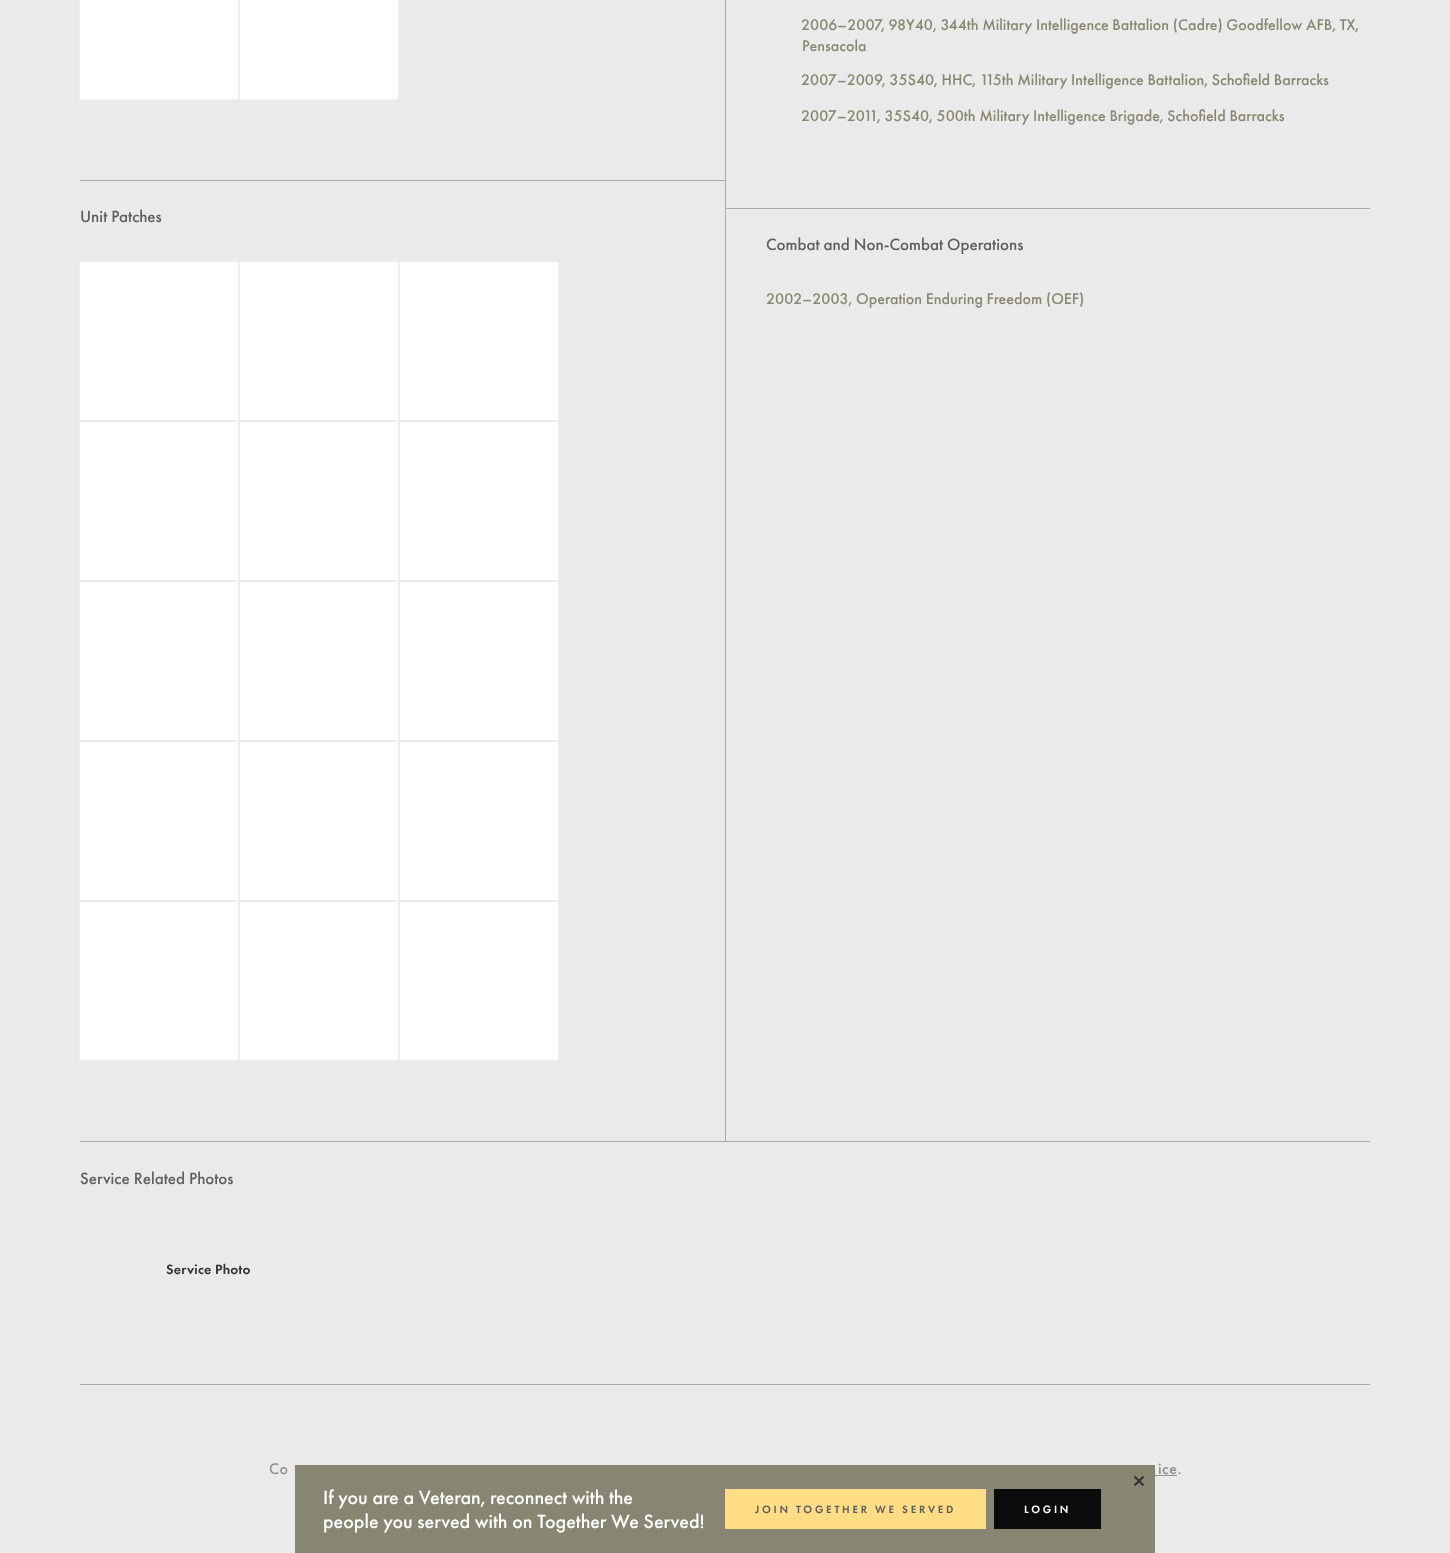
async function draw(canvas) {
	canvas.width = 1450;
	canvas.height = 1553;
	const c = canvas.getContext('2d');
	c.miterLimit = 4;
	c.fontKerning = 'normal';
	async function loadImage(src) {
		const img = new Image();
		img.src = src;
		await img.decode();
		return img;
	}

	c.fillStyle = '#eaeaea';
	c.fillRect(0, 0, 1450, 1553);
	c.fillStyle = '#aaa';
	c.fillRect(80, 1141, 1290, 1);
	c.fillStyle = '#fff';
	c.beginPath();
	c.rect(79.5, -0.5, 159, 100);
	c.fill();
	c.strokeStyle = '#ededed';
	c.stroke();
	c.beginPath();
	c.rect(239.5, -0.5, 159, 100);
	c.fill();
	c.stroke();
	c.fillStyle = '#aaa';
	c.fillRect(80, 180, 645, 1);
	c.font = '500 17px Futura PT';
	c.fillStyle = '#5e5e60';
	c.fillText('Unit Patches', 80, 222);
	c.fillStyle = '#fff';
	c.beginPath();
	c.rect(79.5, 261.5, 159, 159);
	c.fill();
	c.stroke();
	c.beginPath();
	c.rect(239.5, 261.5, 159, 159);
	c.fill();
	c.stroke();
	c.beginPath();
	c.rect(399.5, 261.5, 159, 159);
	c.fill();
	c.stroke();
	c.beginPath();
	c.rect(79.5, 421.5, 159, 159);
	c.fill();
	c.stroke();
	c.beginPath();
	c.rect(239.5, 421.5, 159, 159);
	c.fill();
	c.stroke();
	c.beginPath();
	c.rect(399.5, 421.5, 159, 159);
	c.fill();
	c.stroke();
	c.beginPath();
	c.rect(79.5, 581.5, 159, 159);
	c.fill();
	c.stroke();
	c.beginPath();
	c.rect(239.5, 581.5, 159, 159);
	c.fill();
	c.stroke();
	c.beginPath();
	c.rect(399.5, 581.5, 159, 159);
	c.fill();
	c.stroke();
	c.beginPath();
	c.rect(79.5, 741.5, 159, 159);
	c.fill();
	c.stroke();
	c.beginPath();
	c.rect(239.5, 741.5, 159, 159);
	c.fill();
	c.stroke();
	c.beginPath();
	c.rect(399.5, 741.5, 159, 159);
	c.fill();
	c.stroke();
	c.beginPath();
	c.rect(79.5, 901.5, 159, 159);
	c.fill();
	c.stroke();
	c.beginPath();
	c.rect(239.5, 901.5, 159, 159);
	c.fill();
	c.stroke();
	c.beginPath();
	c.rect(399.5, 901.5, 159, 159);
	c.fill();
	c.stroke();
	c.fillStyle = '#aaa';
	c.fillRect(725, 0, 1, 1141);
	c.font = '500 16px Futura PT';
	c.fillStyle = '#898770';
	for (const [text, x, y] of [
		['2006–2007', 801, 30],
		[', 98Y40, 344th Military Intelligence Battalion (Cadre) Goodfellow AFB, TX,', 881, 30],
		['Pensacola', 802, 51],
		['2007–2009', 801, 85],
		[', 35S40, HHC, 115th Military Intelligence Battalion, Schofield Barracks', 882, 85],
		['2007–2011', 801, 121],
		[', 35S40, 500th Military Intelligence Brigade, Schofield Barracks', 877, 121],
	]) {
		c.fillText(text, x, y);
	}
	c.fillStyle = '#aaa';
	c.fillRect(726, 208, 644, 1);
	c.font = '500 17px Futura PT';
	c.fillStyle = '#5e5e60';
	c.fillText('Combat and Non-Combat Operations', 766, 250);
	c.font = '500 16px Futura PT';
	c.fillStyle = '#898770';
	c.fillText('2002–2003, Operation Enduring Freedom (OEF)', 766, 304);
	c.fillStyle = '#aaa';
	c.fillRect(80, 1384, 1290, 1);
	c.font = '500 17px Futura PT';
	c.fillStyle = '#5e5e60';
	c.fillText('Service Related Photos', 80, 1184);
	c.letterSpacing = '0.25px';
	c.font = '600 14px Futura PT';
	c.fillStyle = '#333';
	c.fillText('Service Photo', 166, 1274);
	c.fillStyle = '#888672';
	c.fillRect(295, 1465, 860, 88);
	c.drawImage(await loadImage('img1.png'), 1133, 1475, 12, 12);
	c.letterSpacing = '0px';
	c.font = '500 20px Futura PT';
	c.fillStyle = '#fff';
	c.fillText('If you are a Veteran, reconnect with the', 323, 1504);
	c.fillText('people you served with on Together We Served!', 323, 1528);
	c.fillStyle = '#fedd84';
	c.fillRect(725, 1489, 261, 40);
	c.letterSpacing = '2.75px';
	c.font = '600 11px Futura PT';
	c.fillStyle = '#5e5e60';
	c.fillText('JOIN TOGETHER WE SERVED', 755, 1513);
	c.fillStyle = '#0b0b0c';
	c.fillRect(994, 1489, 107, 40);
	c.fillStyle = '#fff';
	c.fillText('LOGIN', 1024, 1513);
	c.letterSpacing = '0.5px';
	c.font = '500 16px Futura PT';
	c.fillStyle = '#8f8f8f';
	c.fillText('Co', 269, 1474);
	c.fillText('ice.', 1158, 1474);
	c.fillRect(1155, 1475, 22, 1);
}

draw(document.querySelector('canvas'));
